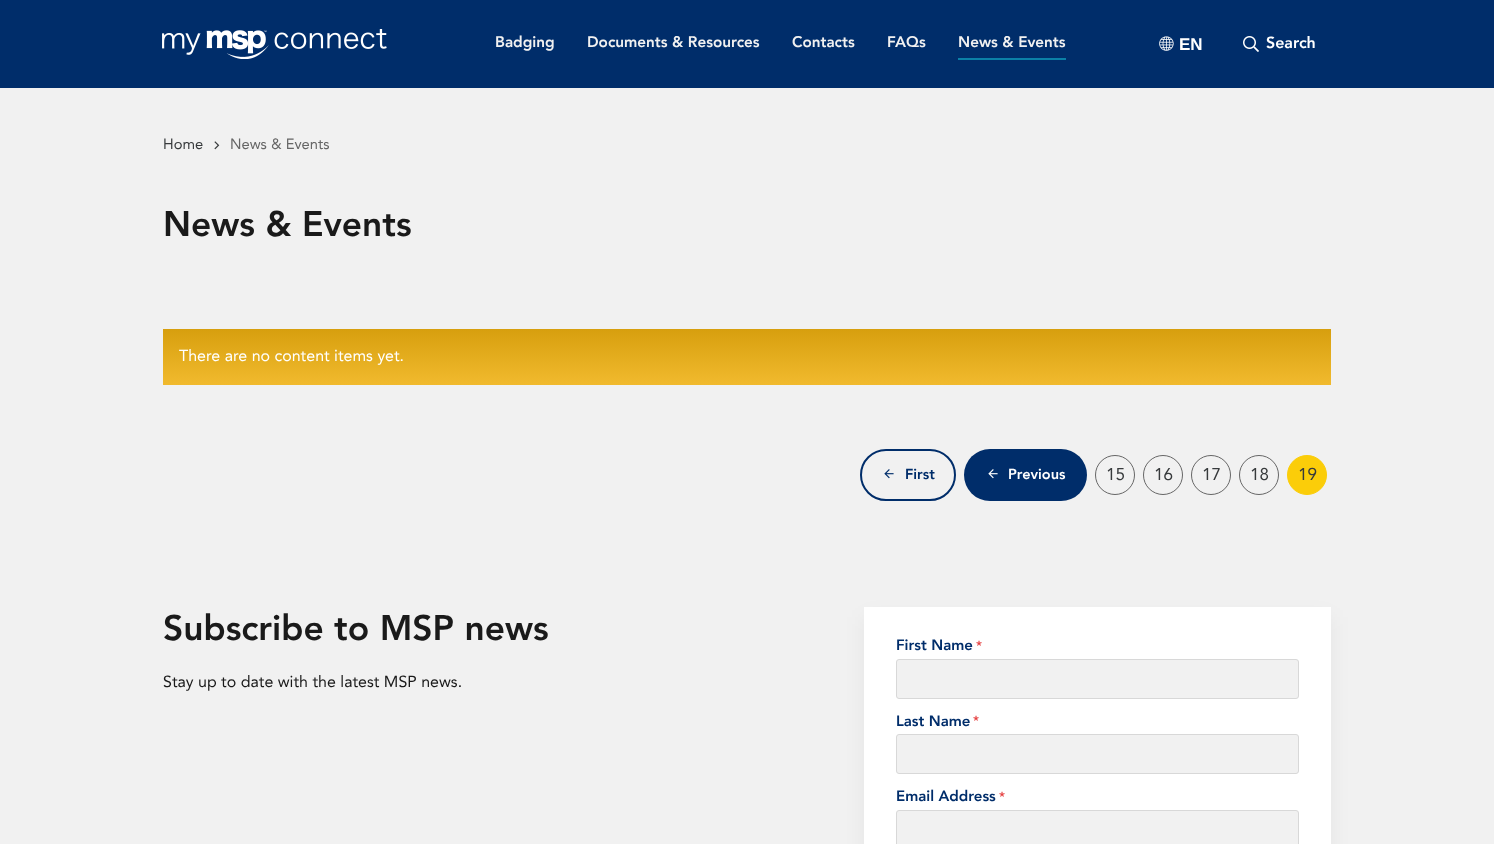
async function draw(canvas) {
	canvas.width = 1494;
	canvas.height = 844;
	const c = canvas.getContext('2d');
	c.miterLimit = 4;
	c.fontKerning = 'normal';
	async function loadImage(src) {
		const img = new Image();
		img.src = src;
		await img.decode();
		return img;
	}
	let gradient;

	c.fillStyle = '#002d6a';
	c.fillRect(0, 0, 1494, 844);
	c.drawImage(await loadImage('img1.png'), 162, 29, 225, 30);
	c.font = '900 15.25px Avenir';
	c.fillStyle = '#f1f1f1';
	for (const [text, x, y] of [
		['Badging', 495, 47],
		['Documents & Resources', 587, 47],
		['Contacts', 792, 47],
		['FAQs', 887, 47],
		['News & Events', 958, 47],
	]) {
		c.fillText(text, x, y);
	}
	c.fillStyle = '#0b80a7';
	c.fillRect(958, 58, 108, 2);
	c.drawImage(await loadImage('img2.png'), 1159, 36, 15, 15);
	c.font = 'bold 17px Liberation Sans';
	c.fillStyle = '#fff';
	c.fillText('EN', 1179, 50);
	c.drawImage(await loadImage('img3.png'), 1243, 36, 16, 16);
	c.font = '900 16px Avenir';
	c.fillText('Search', 1266, 48);
	c.fillStyle = '#f1f1f1';
	c.fillRect(0, 88, 1494, 756);
	c.font = '14.75px Avenir';
	c.fillStyle = '#373a3c';
	c.fillText('Home', 163, 149);
	c.drawImage(await loadImage('img4.png'), 214, 141, 6, 9);
	c.fillStyle = '#666';
	c.fillText('News & Events', 230, 149);
	c.font = '900 35.25px Avenir';
	c.fillStyle = '#1a1a1a';
	c.fillText('News & Events', 163, 236);
	gradient = c.createLinearGradient(747, 329, 747, 385);
	gradient.addColorStop(0, '#d79f0e');
	gradient.addColorStop(1, '#f1ba2e');
	c.fillStyle = gradient;
	c.fillRect(163, 329, 1168, 56);
	c.font = '16px Avenir';
	c.fillStyle = '#fff';
	c.fillText('There are no content items yet.', 179, 361);
	c.beginPath();
	c.roundRect(861, 450, 94, 50, 25);
	c.strokeStyle = '#002d6a';
	c.lineWidth = 2;
	c.stroke();
	c.drawImage(await loadImage('img5.png'), 884, 469, 10, 10);
	c.font = '900 14.5px Avenir';
	c.fillStyle = '#002d6a';
	c.fillText('First', 905, 479);
	c.beginPath();
	c.roundRect(964, 449, 123, 52, 26);
	c.fill();
	c.drawImage(await loadImage('img6.png'), 988, 469, 10, 10);
	c.fillStyle = '#fff';
	c.fillText('Previous', 1008, 479);
	c.beginPath();
	c.arc(1115, 475, 19.5, 0, 2 * Math.PI);
	c.strokeStyle = '#666';
	c.lineWidth = 1;
	c.stroke();
	c.font = '17px Avenir';
	c.fillStyle = '#373a3c';
	c.fillText('15', 1106, 480);
	c.beginPath();
	c.arc(1163, 475, 19.5, 0, 2 * Math.PI);
	c.stroke();
	c.fillText('16', 1154, 480);
	c.beginPath();
	c.arc(1211, 475, 19.5, 0, 2 * Math.PI);
	c.stroke();
	c.fillText('17', 1202, 480);
	c.beginPath();
	c.arc(1259, 475, 19.5, 0, 2 * Math.PI);
	c.stroke();
	c.fillText('18', 1250, 480);
	c.fillStyle = '#fbcd09';
	c.beginPath();
	c.arc(1307, 475, 19.5, 0, 2 * Math.PI);
	c.fill();
	c.strokeStyle = '#fbcd09';
	c.stroke();
	c.fillStyle = '#373a3c';
	c.fillText('19', 1298, 480);
	c.font = '900 35.25px Avenir';
	c.fillStyle = '#1a1a1a';
	c.fillText('Subscribe to MSP news', 163, 640);
	c.font = '16px Avenir';
	c.fillText('Stay up to date with the latest MSP news.', 163, 687);
	c.fillStyle = '#1111110d';
	c.filter = 'blur(10px)';
	c.beginPath();
	c.rect(864, 617, 467, 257);
	c.fill();
	c.filter = 'none';
	c.fillStyle = '#fff';
	c.fillRect(864, 607, 467, 237);
	c.font = '900 15px Avenir';
	c.fillStyle = '#002d6a';
	c.fillText('First Name', 896, 650);
	c.font = '900 13px Avenir';
	c.fillStyle = '#e54040';
	c.fillText('*', 976, 650);
	c.fillStyle = '#f1f1f1';
	c.beginPath();
	c.roundRect(896.5, 659.5, 402, 39, 2.5);
	c.fill();
	c.strokeStyle = '#d8d8d8';
	c.stroke();
	c.font = '900 15px Avenir';
	c.fillStyle = '#002d6a';
	c.fillText('Last Name', 896, 726);
	c.font = '900 13px Avenir';
	c.fillStyle = '#e54040';
	c.fillText('*', 973, 725);
	c.fillStyle = '#f1f1f1';
	c.beginPath();
	c.roundRect(896.5, 734.5, 402, 39, 2.5);
	c.fill();
	c.stroke();
	c.font = '900 15px Avenir';
	c.fillStyle = '#002d6a';
	c.fillText('Email Address', 896, 801);
	c.font = '900 13px Avenir';
	c.fillStyle = '#e54040';
	c.fillText('*', 999, 801);
	c.fillStyle = '#f1f1f1';
	c.beginPath();
	c.roundRect(896.5, 810.5, 402, 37, 2.5);
	c.fill();
	c.stroke();
}

draw(document.querySelector('canvas'));
